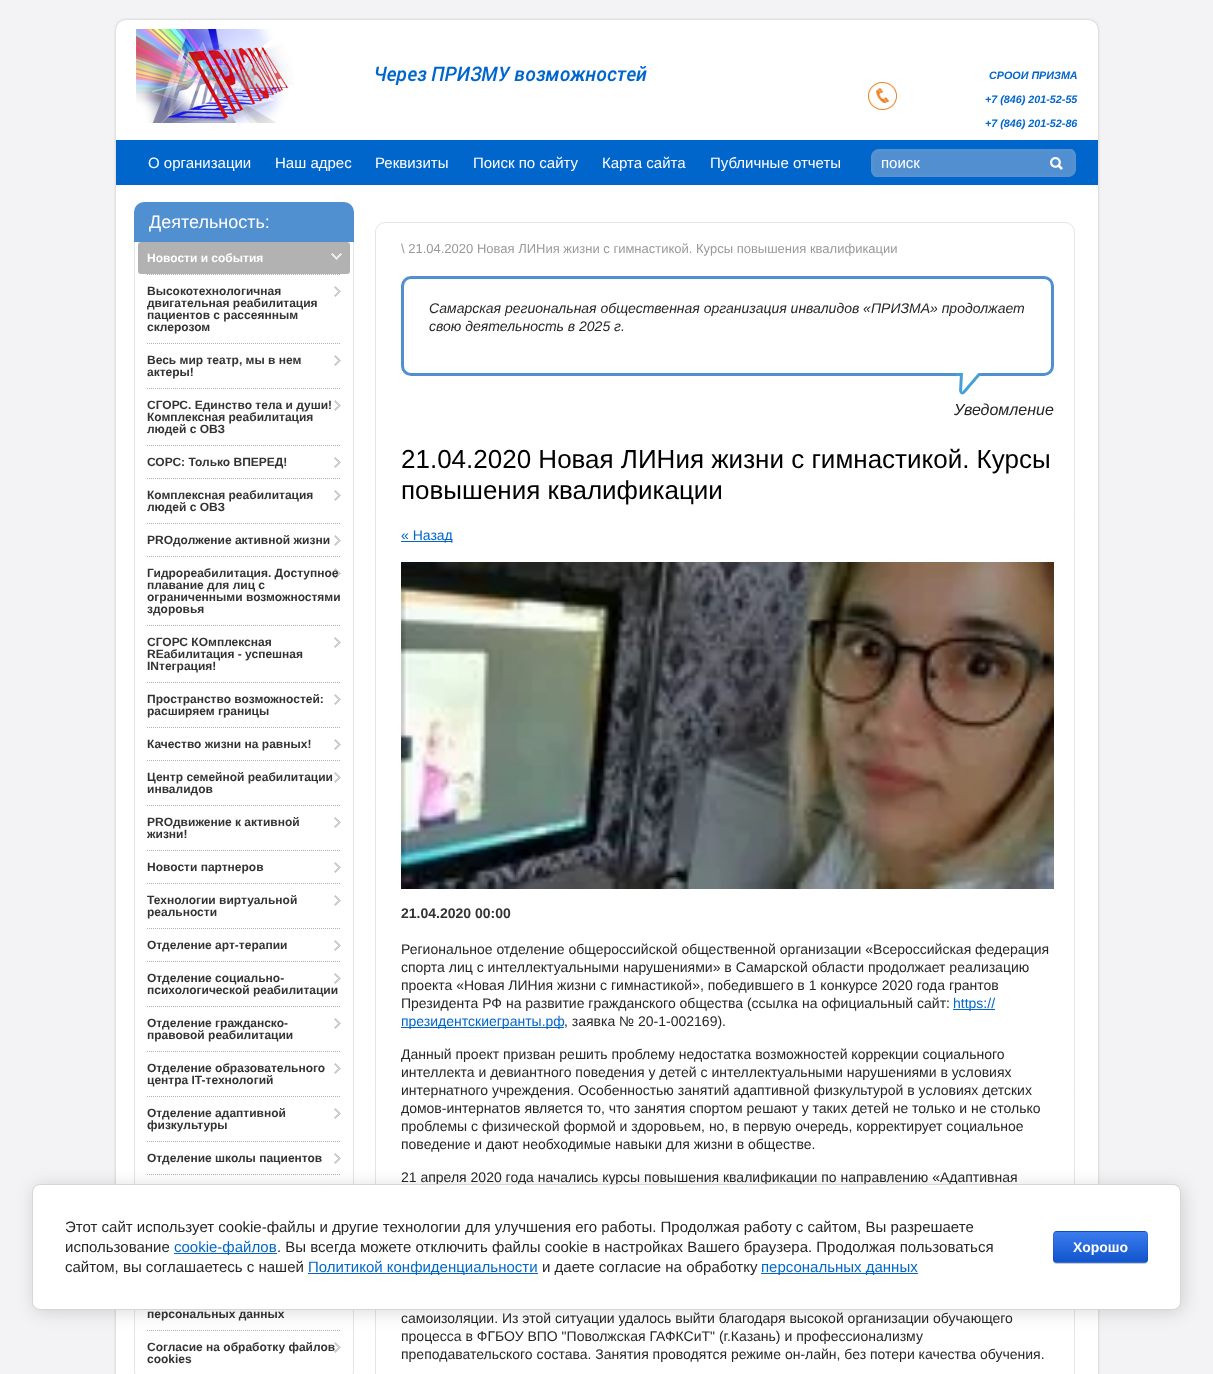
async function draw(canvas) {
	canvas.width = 1213;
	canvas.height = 1374;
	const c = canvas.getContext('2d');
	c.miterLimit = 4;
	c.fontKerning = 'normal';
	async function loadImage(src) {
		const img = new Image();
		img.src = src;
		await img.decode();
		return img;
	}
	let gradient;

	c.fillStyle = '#f3f3f5';
	c.fillRect(0, 0, 1213, 1374);
	c.fillStyle = '#000';
	c.filter = 'blur(2.5px)';
	c.beginPath();
	c.roundRect(119, 23, 976, 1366, 7);
	c.fill();
	c.filter = 'none';
	c.fillStyle = '#fff';
	c.beginPath();
	c.roundRect(116, 20, 982, 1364, 10);
	c.fill();
	c.drawImage(await loadImage('img1.png'), 136, 29, 158, 94);
	c.font = 'italic 500 20px Roboto';
	c.fillStyle = '#06c';
	c.fillText('Через ПРИЗМУ возможностей', 373, 81);
	c.drawImage(await loadImage('img2.png'), 868, 82, 29, 28);
	c.font = 'italic bold 10.75px Liberation Sans';
	for (const [text, x, y] of [
		['СРООИ ПРИЗМА', 989, 79],
		['+7 (846) 201-52-55', 985, 103],
		['+7 (846) 201-52-86', 985, 127],
	]) {
		c.fillText(text, x, y);
	}
	c.fillRect(116, 140, 982, 45);
	c.font = '15px Liberation Sans';
	c.fillStyle = '#fff';
	for (const [text, x, y] of [
		['О организации', 148, 168],
		['Наш адрес', 275, 168],
		['Реквизиты', 375, 168],
		['Поиск по сайту', 473, 168],
		['Карта сайта', 602, 168],
		['Публичные отчеты', 710, 168],
	]) {
		c.fillText(text, x, y);
	}
	c.drawImage(await loadImage('img3.png'), 871, 149, 10, 28);
	c.drawImage(await loadImage('img4.png'), 881, 149, 195, 28);
	c.fillText('поиск', 881, 168);
	c.drawImage(await loadImage('img5.png'), 1050, 157, 13, 13);
	c.fillStyle = '#508fd0';
	c.beginPath();
	c.roundRect(134, 202, 220, 40, [10, 10, 0, 0]);
	c.fill();
	c.font = '18px Liberation Sans';
	c.fillStyle = '#fff';
	c.fillText('Деятельность:', 149, 228);
	c.fillStyle = '#e5e5e5';
	c.beginPath();
	c.moveTo(134, 242);
	c.lineTo(354, 242);
	c.lineTo(354, 1371);
	c.bezierCurveTo(354, 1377, 350, 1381, 344, 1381);
	c.lineTo(144, 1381);
	c.bezierCurveTo(138, 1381, 134, 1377, 134, 1371);
	c.closePath();
	c.moveTo(135, 242);
	c.lineTo(353, 242);
	c.lineTo(353, 1371);
	c.bezierCurveTo(353, 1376, 349, 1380, 344, 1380);
	c.lineTo(144, 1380);
	c.bezierCurveTo(139, 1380, 135, 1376, 135, 1371);
	c.closePath();
	c.fill('evenodd');
	c.fillStyle = '#b2b2b2';
	c.beginPath();
	c.roundRect(138, 242, 212, 32, 3);
	c.fill();
	c.font = 'bold 12px Liberation Sans';
	c.fillStyle = '#fff';
	c.fillText('Новости и события', 147, 262);
	c.drawImage(await loadImage('img6.png'), 331, 253, 11, 7);
	c.beginPath();
	c.moveTo(147, 274.5);
	c.lineTo(341, 274.5);
	c.strokeStyle = '#b2b2b2';
	c.setLineDash([1, 1]);
	c.stroke();
	c.fillStyle = '#333';
	c.fillText('Высокотехнологичная', 147, 295);
	c.drawImage(await loadImage('img7.png'), 334, 286, 7, 11);
	for (const [text, x, y] of [
		['двигательная реабилитация', 147, 307],
		['пациентов с рассеянным', 147, 319],
		['склерозом', 147, 331],
	]) {
		c.fillText(text, x, y);
	}
	c.beginPath();
	c.moveTo(147, 343.5);
	c.lineTo(341, 343.5);
	c.stroke();
	c.fillText('Весь мир театр, мы в нем', 147, 364);
	c.drawImage(await loadImage('img7.png'), 334, 355, 7, 11);
	c.fillText('актеры!', 147, 376);
	c.beginPath();
	c.moveTo(147, 388.5);
	c.lineTo(341, 388.5);
	c.stroke();
	c.fillText('СГОРС. Единство тела и души!', 147, 409);
	c.drawImage(await loadImage('img7.png'), 334, 400, 7, 11);
	c.fillText('Комплексная реабилитация', 147, 421);
	c.fillText('людей с ОВЗ', 147, 433);
	c.beginPath();
	c.moveTo(147, 445.5);
	c.lineTo(341, 445.5);
	c.stroke();
	c.fillText('СОРС: Только ВПЕРЕД!', 147, 466);
	c.drawImage(await loadImage('img7.png'), 334, 457, 7, 11);
	c.beginPath();
	c.moveTo(147, 478.5);
	c.lineTo(341, 478.5);
	c.stroke();
	c.fillText('Комплексная реабилитация', 147, 499);
	c.drawImage(await loadImage('img7.png'), 334, 490, 7, 11);
	c.fillText('людей с ОВЗ', 147, 511);
	c.beginPath();
	c.moveTo(147, 523.5);
	c.lineTo(341, 523.5);
	c.stroke();
	c.fillText('PROдолжение активной жизни', 147, 544);
	c.drawImage(await loadImage('img7.png'), 334, 535, 7, 11);
	c.beginPath();
	c.moveTo(147, 556.5);
	c.lineTo(341, 556.5);
	c.stroke();
	c.fillText('Гидрореабилитация. Доступное', 147, 577);
	c.drawImage(await loadImage('img8.png'), 334, 568, 7, 11);
	for (const [text, x, y] of [
		['плавание для лиц с', 147, 589],
		['ограниченными возможностями', 147, 601],
		['здоровья', 147, 613],
	]) {
		c.fillText(text, x, y);
	}
	c.beginPath();
	c.moveTo(147, 625.5);
	c.lineTo(341, 625.5);
	c.stroke();
	c.fillText('СГОРС КОмплексная', 147, 646);
	c.drawImage(await loadImage('img7.png'), 334, 637, 7, 11);
	c.fillText('REабилитация - успешная', 147, 658);
	c.fillText('INтеграция!', 147, 670);
	c.beginPath();
	c.moveTo(147, 682.5);
	c.lineTo(341, 682.5);
	c.stroke();
	c.fillText('Пространство возможностей:', 147, 703);
	c.drawImage(await loadImage('img7.png'), 334, 694, 7, 11);
	c.fillText('расширяем границы', 147, 715);
	c.beginPath();
	c.moveTo(147, 727.5);
	c.lineTo(341, 727.5);
	c.stroke();
	c.fillText('Качество жизни на равных!', 147, 748);
	c.drawImage(await loadImage('img7.png'), 334, 739, 7, 11);
	c.beginPath();
	c.moveTo(147, 760.5);
	c.lineTo(341, 760.5);
	c.stroke();
	c.fillText('Центр семейной реабилитации', 147, 781);
	c.drawImage(await loadImage('img7.png'), 334, 772, 7, 11);
	c.fillText('инвалидов', 147, 793);
	c.beginPath();
	c.moveTo(147, 805.5);
	c.lineTo(341, 805.5);
	c.stroke();
	c.fillText('PROдвижение к активной', 147, 826);
	c.drawImage(await loadImage('img7.png'), 334, 817, 7, 11);
	c.fillText('жизни!', 147, 838);
	c.beginPath();
	c.moveTo(147, 850.5);
	c.lineTo(341, 850.5);
	c.stroke();
	c.fillText('Новости партнеров', 147, 871);
	c.drawImage(await loadImage('img7.png'), 334, 862, 7, 11);
	c.beginPath();
	c.moveTo(147, 883.5);
	c.lineTo(341, 883.5);
	c.stroke();
	c.fillText('Технологии виртуальной', 147, 904);
	c.drawImage(await loadImage('img7.png'), 334, 895, 7, 11);
	c.fillText('реальности', 147, 916);
	c.beginPath();
	c.moveTo(147, 928.5);
	c.lineTo(341, 928.5);
	c.stroke();
	c.fillText('Отделение арт-терапии', 147, 949);
	c.drawImage(await loadImage('img7.png'), 334, 940, 7, 11);
	c.beginPath();
	c.moveTo(147, 961.5);
	c.lineTo(341, 961.5);
	c.stroke();
	c.fillText('Отделение социально-', 147, 982);
	c.drawImage(await loadImage('img7.png'), 334, 973, 7, 11);
	c.fillText('психологической реабилитации', 147, 994);
	c.beginPath();
	c.moveTo(147, 1006.5);
	c.lineTo(341, 1006.5);
	c.stroke();
	c.fillText('Отделение гражданско-', 147, 1027);
	c.drawImage(await loadImage('img7.png'), 334, 1018, 7, 11);
	c.fillText('правовой реабилитации', 147, 1039);
	c.beginPath();
	c.moveTo(147, 1051.5);
	c.lineTo(341, 1051.5);
	c.stroke();
	c.fillText('Отделение образовательного', 147, 1072);
	c.drawImage(await loadImage('img7.png'), 334, 1063, 7, 11);
	c.fillText('центра IT-технологий', 147, 1084);
	c.beginPath();
	c.moveTo(147, 1096.5);
	c.lineTo(341, 1096.5);
	c.stroke();
	c.fillText('Отделение адаптивной', 147, 1117);
	c.drawImage(await loadImage('img7.png'), 334, 1108, 7, 11);
	c.fillText('физкультуры', 147, 1129);
	c.beginPath();
	c.moveTo(147, 1141.5);
	c.lineTo(341, 1141.5);
	c.stroke();
	c.fillText('Отделение школы пациентов', 147, 1162);
	c.drawImage(await loadImage('img7.png'), 334, 1153, 7, 11);
	c.beginPath();
	c.moveTo(147, 1174.5);
	c.lineTo(341, 1174.5);
	c.stroke();
	c.fillText('персональных данных', 147, 1318);
	c.beginPath();
	c.moveTo(147, 1330.5);
	c.lineTo(341, 1330.5);
	c.stroke();
	c.fillText('Согласие на обработку файлов', 147, 1351);
	c.drawImage(await loadImage('img9.png'), 334, 1342, 7, 11);
	c.fillText('cookies', 147, 1363);
	c.beginPath();
	c.roundRect(375.5, 222.5, 699, 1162, 9.5);
	c.strokeStyle = '#e5e5e5';
	c.setLineDash([]);
	c.stroke();
	c.font = '13px Liberation Sans';
	c.fillStyle = '#999';
	c.fillText('\\ 21.04.2020 Новая ЛИНия жизни с гимнастикой. Курсы повышения квалификации', 401, 253);
	c.beginPath();
	c.roundRect(402.5, 277.5, 650, 97, 8.5);
	c.strokeStyle = '#508fd0';
	c.lineWidth = 3;
	c.stroke();
	c.font = 'italic 14px Liberation Sans';
	c.fillStyle = '#262626';
	c.fillText('Самарская региональная общественная организация инвалидов «ПРИЗМА» продолжает', 429, 313);
	c.fillText('свою деятельность в 2025 г.', 429, 331);
	c.drawImage(await loadImage('img10.png'), 956, 373, 25, 22);
	c.font = 'italic 16px Liberation Sans';
	c.fillText('Уведомление', 954, 415);
	c.font = '26px Liberation Sans';
	c.fillStyle = '#000';
	c.fillText('21.04.2020 Новая ЛИНия жизни с гимнастикой. Курсы', 401, 468);
	c.fillText('повышения квалификации', 401, 499);
	c.fillStyle = '#06c';
	c.fillRect(401, 541, 51, 1);
	c.font = '14px Liberation Sans';
	c.fillText('« Назад', 401, 540);
	c.drawImage(await loadImage('img11.png'), 401, 562, 653, 327);
	c.font = 'bold 14px Liberation Sans';
	c.fillStyle = '#333';
	c.fillText('21.04.2020 00:00', 401, 918);
	c.font = '14px Liberation Sans';
	c.fillStyle = '#262626';
	for (const [text, x, y] of [
		['Региональное отделение общероссийской общественной организации «Всероссийская федерация', 401, 954],
		['спорта лиц с интеллектуальными нарушениями» в Самарской области продолжает реализацию', 401, 972],
		['проекта «Новая ЛИНия жизни с гимнастикой», победившего в 1 конкурсе 2020 года грантов', 401, 990],
		['Президента РФ на развитие гражданского общества (ссылка на официальный сайт:', 401, 1008],
	]) {
		c.fillText(text, x, y);
	}
	c.fillStyle = '#06c';
	c.fillRect(953, 1009, 42, 1);
	c.fillText('https://', 953, 1008);
	c.fillRect(401, 1027, 163, 1);
	c.fillText('президентскиегранты.рф', 401, 1026);
	c.fillStyle = '#262626';
	for (const [text, x, y] of [
		[', заявка № 20-1-002169).', 564, 1026],
		['Данный проект призван решить проблему недостатка возможностей коррекции социального', 401, 1059],
		['интеллекта и девиантного поведения у детей с интеллектуальными нарушениями в условиях', 401, 1077],
		['интернатного учреждения. Особенностью занятий адаптивной физкультурой в условиях детских', 401, 1095],
		['домов-интернатов является то, что занятия спортом решают у таких детей не только и не столько', 401, 1113],
		['проблемы с физической формой и здоровьем, но, в первую очередь, корректирует социальное', 401, 1131],
		['поведение и дают необходимые навыки для жизни в обществе.', 401, 1149],
		['21 апреля 2020 года начались курсы повышения квалификации по направлению «Адаптивная', 401, 1182],
		['самоизоляции. Из этой ситуации удалось выйти благодаря высокой организации обучающего', 401, 1323],
		['процесса в ФГБОУ ВПО "Поволжская ГАФКСиТ" (г.Казань) и профессионализму', 401, 1341],
		['преподавательского состава. Занятия проводятся режиме он-лайн, без потери качества обучения.', 401, 1359],
	]) {
		c.fillText(text, x, y);
	}
	c.fillStyle = '#00000024';
	c.filter = 'blur(9px)';
	c.beginPath();
	c.roundRect(34, 1186, 1149, 126, 8);
	c.fill();
	c.filter = 'none';
	c.fillStyle = '#fff';
	c.beginPath();
	c.roundRect(32.5, 1184.5, 1148, 125, 7.5);
	c.fill();
	c.strokeStyle = '#d6d6d6';
	c.lineWidth = 1;
	c.stroke();
	c.font = '15px Liberation Sans';
	c.fillStyle = '#262626';
	c.fillText('Этот сайт использует cookie-файлы и другие технологии для улучшения его работы. Продолжая работу с сайтом, Вы разрешаете', 65, 1232);
	c.fillText('использование', 65, 1252);
	c.fillStyle = '#06c';
	c.fillRect(174, 1253, 103, 1);
	c.fillText('cookie-файлов', 174, 1252);
	c.fillStyle = '#262626';
	c.fillText('. Вы всегда можете отключить файлы cookie в настройках Вашего браузера. Продолжая пользоваться', 277, 1252);
	c.fillText('сайтом, вы соглашаетесь с нашей', 65, 1272);
	c.fillStyle = '#06c';
	c.fillRect(308, 1273, 230, 1);
	c.fillText('Политикой конфиденциальности', 308, 1272);
	c.fillStyle = '#262626';
	c.fillText('и даете согласие на обработку', 542, 1272);
	c.fillStyle = '#06c';
	c.fillRect(761, 1273, 157, 1);
	c.fillText('персональных данных', 761, 1272);
	c.fillStyle = '#00000033';
	c.filter = 'blur(0.5px)';
	c.beginPath();
	c.roundRect(1053, 1232, 95, 32, 4);
	c.fill();
	c.filter = 'none';
	c.save();
	c.beginPath();
	c.roundRect(1053, 1231, 95, 32, 4);
	c.clip();
	gradient = c.createLinearGradient(1101, 1202, 1101, 1232);
	gradient.addColorStop(0, '#3b7cef');
	gradient.addColorStop(1, '#15c');
	c.fillStyle = gradient;
	c.fillRect(1053, 1231, 95, 1);
	gradient = c.createLinearGradient(1101, 1232, 1101, 1262);
	gradient.addColorStop(0, '#3b7cef');
	gradient.addColorStop(1, '#15c');
	c.fillStyle = gradient;
	c.fillRect(1053, 1232, 95, 30);
	gradient = c.createLinearGradient(1101, 1262, 1101, 1292);
	gradient.addColorStop(0, '#3b7cef');
	gradient.addColorStop(1, '#15c');
	c.fillStyle = gradient;
	c.fillRect(1053, 1262, 95, 1);
	c.restore();
	c.beginPath();
	c.roundRect(1053.5, 1231.5, 94, 31, 3.5);
	c.strokeStyle = '#0000001a';
	c.stroke();
	c.font = 'bold 14px Liberation Sans';
	c.fillStyle = '#fff';
	c.fillText('Хорошо', 1073, 1252);
}

draw(document.querySelector('canvas'));
